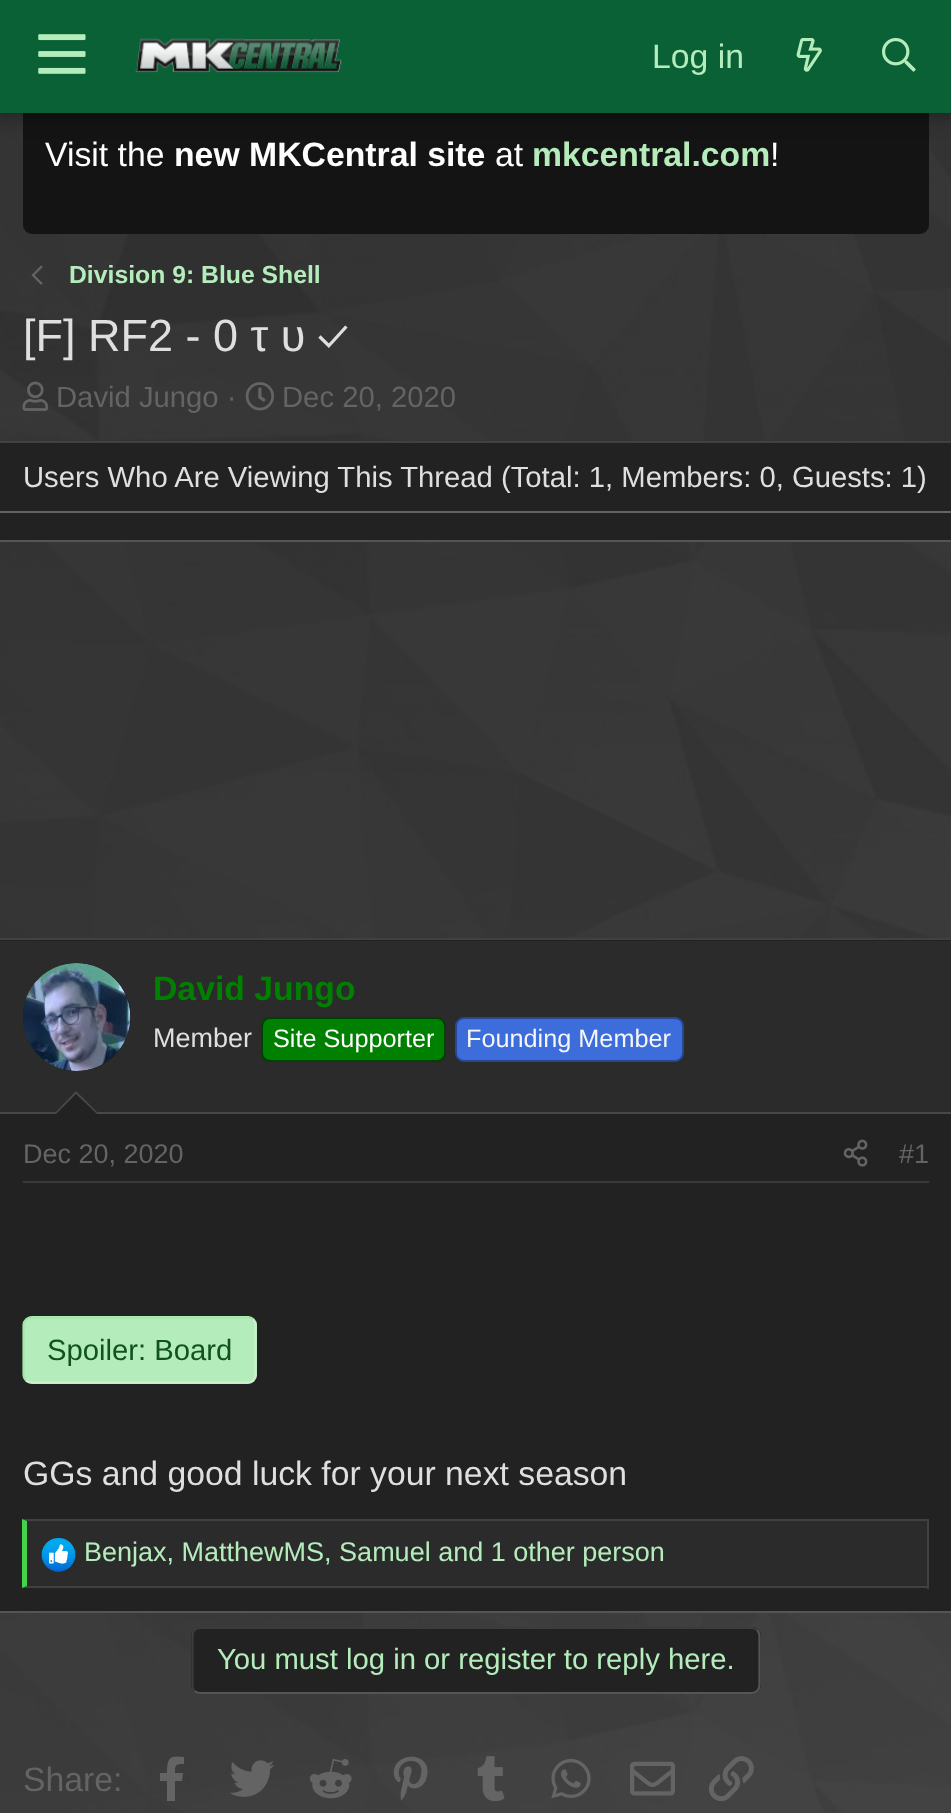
async function draw(canvas) {
	canvas.width = 951;
	canvas.height = 1813;
	const c = canvas.getContext('2d');
	c.miterLimit = 4;
	c.fontKerning = 'normal';
	async function loadImage(src) {
		const img = new Image();
		img.src = src;
		await img.decode();
		return img;
	}

	c.fillStyle = '#1e1e1e';
	c.fillRect(0, 0, 951, 1813);
	c.drawImage(await loadImage('img5.png'), 0, 113, 951, 1700);
	c.fillStyle = '#141414';
	c.beginPath();
	c.roundRect(23, -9, 906, 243, 9);
	c.fill();
	c.fillStyle = '#0000004d';
	c.filter = 'blur(9px)';
	c.beginPath();
	c.rect(-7, -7, 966, 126);
	c.fill();
	c.filter = 'none';
	c.fillStyle = '#0a6136';
	c.fillRect(0, 0, 951, 113);
	c.drawImage(await loadImage('img1.png'), 38, 34, 48, 40);
	c.drawImage(await loadImage('img2.png'), 135, 38, 207, 35);
	c.font = '33.75px Liberation Sans';
	c.fillStyle = '#b5ecbb';
	c.fillText('Log in', 652, 68);
	c.drawImage(await loadImage('img3.png'), 796, 38, 26, 34);
	c.drawImage(await loadImage('img4.png'), 882, 38, 34, 34);
	c.fillStyle = '#fefefe';
	c.fillText('Visit the', 45, 166);
	c.font = 'bold 33.75px Liberation Sans';
	c.fillText('new MKCentral site', 174, 166);
	c.font = '33.75px Liberation Sans';
	c.fillText('at', 495, 166);
	c.font = 'bold 33.75px Liberation Sans';
	c.fillStyle = '#b5ecbb';
	c.fillText('mkcentral.com', 532, 166);
	c.font = '33.75px Liberation Sans';
	c.fillStyle = '#fefefe';
	c.fillText('!', 770, 166);
	c.drawImage(await loadImage('img6.png'), 31, 265, 12, 20);
	c.font = 'bold 24.75px Liberation Sans';
	c.fillStyle = '#b5ecbb';
	c.fillText('Division 9: Blue Shell', 69, 283);
	c.font = '45px Liberation Sans';
	c.fillStyle = '#dfdfdf';
	c.fillText('[F] RF2 - 0 τ υ', 23, 351);
	c.font = '45px Ubuntu';
	c.fillText('✓', 317, 351);
	c.drawImage(await loadImage('img7.png'), 22, 381, 27, 30);
	c.font = '29.25px Liberation Sans';
	c.fillStyle = '#646464';
	c.fillText('David Jungo ·', 56, 407);
	c.drawImage(await loadImage('img8.png'), 245, 382, 29, 29);
	c.fillText('Dec 20, 2020', 282, 407);
	for (const [x, y, w, h, color] of [
		[0, 443, 951, 97, '#222'],
		[0, 441, 951, 2, '#414141'],
		[0, 540, 951, 2, '#555'],
		[0, 511, 951, 2, '#646464'],
	]) {
		c.fillStyle = color;
		c.fillRect(x, y, w, h);
	}
	c.fillStyle = '#dfdfdf';
	c.fillText('Users Who Are Viewing This Thread (Total: 1, Members: 0, Guests: 1)', 23, 487);
	for (const [x, y, w, h, color] of [
		[0, 940, 951, 671, '#222'],
		[0, 938, 951, 2, '#414141'],
		[0, 1611, 951, 2, '#555'],
		[0, 941, 951, 171, '#2b2b2b'],
		[0, 1112, 951, 2, '#484848'],
	]) {
		c.fillStyle = color;
		c.fillRect(x, y, w, h);
	}
	c.fillStyle = '#222';
	c.beginPath();
	c.arc(77, 1017, 54, 0, 2 * Math.PI);
	c.fill();
	c.drawImage(await loadImage('img9.png'), 23, 963, 108, 108);
	c.font = 'bold 33.75px Liberation Sans';
	c.fillStyle = '#008000';
	c.fillText('David Jungo', 153, 1000);
	c.font = '27px Liberation Sans';
	c.fillStyle = '#dfdfdf';
	c.fillText('Member', 153, 1047);
	c.fillStyle = '#008000';
	c.beginPath();
	c.roundRect(262, 1018, 183, 43, 8);
	c.fill();
	c.strokeStyle = '#004000';
	c.lineWidth = 2;
	c.stroke();
	c.font = '25.25px Liberation Sans';
	c.fillStyle = '#fefefe';
	c.fillText('Site Supporter', 273, 1047);
	c.fillStyle = '#3d6ddb';
	c.beginPath();
	c.roundRect(456, 1018, 227, 43, 8);
	c.fill();
	c.strokeStyle = '#274893';
	c.stroke();
	c.fillStyle = '#f6f6f6';
	c.fillText('Founding Member', 466, 1047);
	c.fillStyle = '#484848';
	c.beginPath();
	c.moveTo(99, 1114);
	c.lineTo(54, 1114);
	c.lineTo(76, 1091);
	c.closePath();
	c.fill();
	c.fillStyle = '#222';
	c.beginPath();
	c.moveTo(97, 1114);
	c.lineTo(56, 1114);
	c.lineTo(76, 1094);
	c.closePath();
	c.fill();
	c.fillStyle = '#393939';
	c.fillRect(23, 1181, 906, 2);
	c.font = '27px Liberation Sans';
	c.fillStyle = '#646464';
	c.fillText('Dec 20, 2020', 23, 1163);
	c.drawImage(await loadImage('img10.png'), 843, 1139, 25, 28);
	c.fillText('#1', 899, 1163);
	c.fillStyle = '#b5ecbb';
	c.beginPath();
	c.roundRect(23, 1316, 234, 68, 9);
	c.fill();
	c.beginPath();
	c.moveTo(253, 1319.5);
	c.bezierCurveTo(254.5, 1321, 255.5, 1323, 255.5, 1325);
	c.lineTo(255.5, 1375);
	c.bezierCurveTo(255.5, 1377, 254.5, 1379, 253, 1380.5);
	c.bezierCurveTo(251.5, 1382, 249.5, 1382.5, 247.5, 1382.5);
	c.lineTo(31.5, 1382.5);
	c.bezierCurveTo(29.5, 1382.5, 27.5, 1382, 26, 1380.5);
	c.strokeStyle = '#c9f1ce';
	c.lineWidth = 2.2;
	c.stroke();
	c.beginPath();
	c.moveTo(26, 1380.5);
	c.bezierCurveTo(24.5, 1379, 23.5, 1377, 23.5, 1375);
	c.lineTo(23.5, 1325);
	c.bezierCurveTo(23.5, 1323, 24.5, 1321, 26, 1319.5);
	c.bezierCurveTo(27.5, 1318, 29.5, 1317.5, 31.5, 1317.5);
	c.lineTo(247.5, 1317.5);
	c.bezierCurveTo(249.5, 1317.5, 251.5, 1318, 253, 1319.5);
	c.strokeStyle = '#a1e7a8';
	c.stroke();
	c.font = '29.25px Liberation Sans';
	c.fillStyle = '#0f531f';
	c.fillText('Spoiler: Board', 47, 1360);
	c.font = '33.75px Liberation Sans';
	c.fillStyle = '#dfdfdf';
	c.fillText('GGs and good luck for your next season', 23, 1485);
	c.fillStyle = '#2b2b2b';
	c.fillRect(27, 1521, 900, 65);
	c.fillStyle = '#414141';
	c.beginPath();
	c.moveTo(22, 1519);
	c.lineTo(929, 1519);
	c.lineTo(927, 1521);
	c.lineTo(27, 1521);
	c.closePath();
	c.fill();
	c.fillRect(927, 1519, 2, 70);
	c.beginPath();
	c.moveTo(929, 1588);
	c.lineTo(22, 1588);
	c.lineTo(27, 1586);
	c.lineTo(927, 1586);
	c.closePath();
	c.fill();
	c.fillStyle = '#42d54c';
	c.beginPath();
	c.moveTo(22, 1588);
	c.lineTo(22, 1519);
	c.lineTo(27, 1521);
	c.lineTo(27, 1586);
	c.closePath();
	c.fill();
	c.drawImage(await loadImage('img11.png'), 41, 1538, 35, 34);
	c.font = '27px Liberation Sans';
	c.fillStyle = '#b5ecbb';
	c.fillText('Benjax, MatthewMS, Samuel and 1 other person', 84, 1561);
	c.fillStyle = '#222';
	c.beginPath();
	c.roundRect(191, 1627, 570, 67, 9);
	c.fill();
	c.beginPath();
	c.moveTo(757, 1630);
	c.bezierCurveTo(758.5, 1631.5, 759.5, 1633.5, 759.5, 1636);
	c.lineTo(759.5, 1685);
	c.bezierCurveTo(759.5, 1687.5, 758.5, 1689.5, 757, 1691);
	c.bezierCurveTo(755.5, 1692.5, 753.5, 1693, 751.5, 1693);
	c.lineTo(200, 1693);
	c.bezierCurveTo(198, 1693, 196, 1692.5, 194.5, 1691);
	c.strokeStyle = '#555';
	c.stroke();
	c.beginPath();
	c.moveTo(194.5, 1691);
	c.bezierCurveTo(193, 1689.5, 192.5, 1687.5, 192.5, 1685);
	c.lineTo(192.5, 1636);
	c.bezierCurveTo(192.5, 1633.5, 193, 1631.5, 194.5, 1630);
	c.bezierCurveTo(196, 1628.5, 198, 1628, 200, 1628);
	c.lineTo(751.5, 1628);
	c.bezierCurveTo(753.5, 1628, 755.5, 1628.5, 757, 1630);
	c.strokeStyle = '#3c3c3c';
	c.stroke();
	c.font = '29.25px Liberation Sans';
	c.fillStyle = '#b5ecbb';
	c.fillText('You must log in or register to reply here.', 217, 1669);
	c.font = '33.75px Liberation Sans';
	c.fillStyle = '#646464';
	c.fillText('Share:', 23, 1791);
	c.beginPath();
	c.moveTo(182, 1781);
	c.lineTo(175, 1781);
	c.lineTo(175, 1801);
	c.lineTo(167, 1801);
	c.lineTo(167, 1781);
	c.lineTo(160, 1781);
	c.lineTo(160, 1773);
	c.lineTo(167, 1773);
	c.bezierCurveTo(167, 1758, 169, 1755, 184, 1757);
	c.lineTo(184, 1764);
	c.bezierCurveTo(175, 1764, 175, 1765, 175, 1773);
	c.lineTo(183, 1773);
	c.closePath();
	c.fill();
	c.drawImage(await loadImage('img12.png'), 230, 1760, 44, 37);
	c.drawImage(await loadImage('img13.png'), 310, 1759, 42, 40);
	c.drawImage(await loadImage('img14.png'), 393, 1756, 35, 45);
	c.drawImage(await loadImage('img15.png'), 477, 1756, 28, 46);
	c.drawImage(await loadImage('img16.png'), 551, 1759, 40, 40);
	c.drawImage(await loadImage('img17.png'), 630, 1761, 45, 35);
	c.drawImage(await loadImage('img18.png'), 708, 1756, 46, 45);
}

draw(document.querySelector('canvas'));
